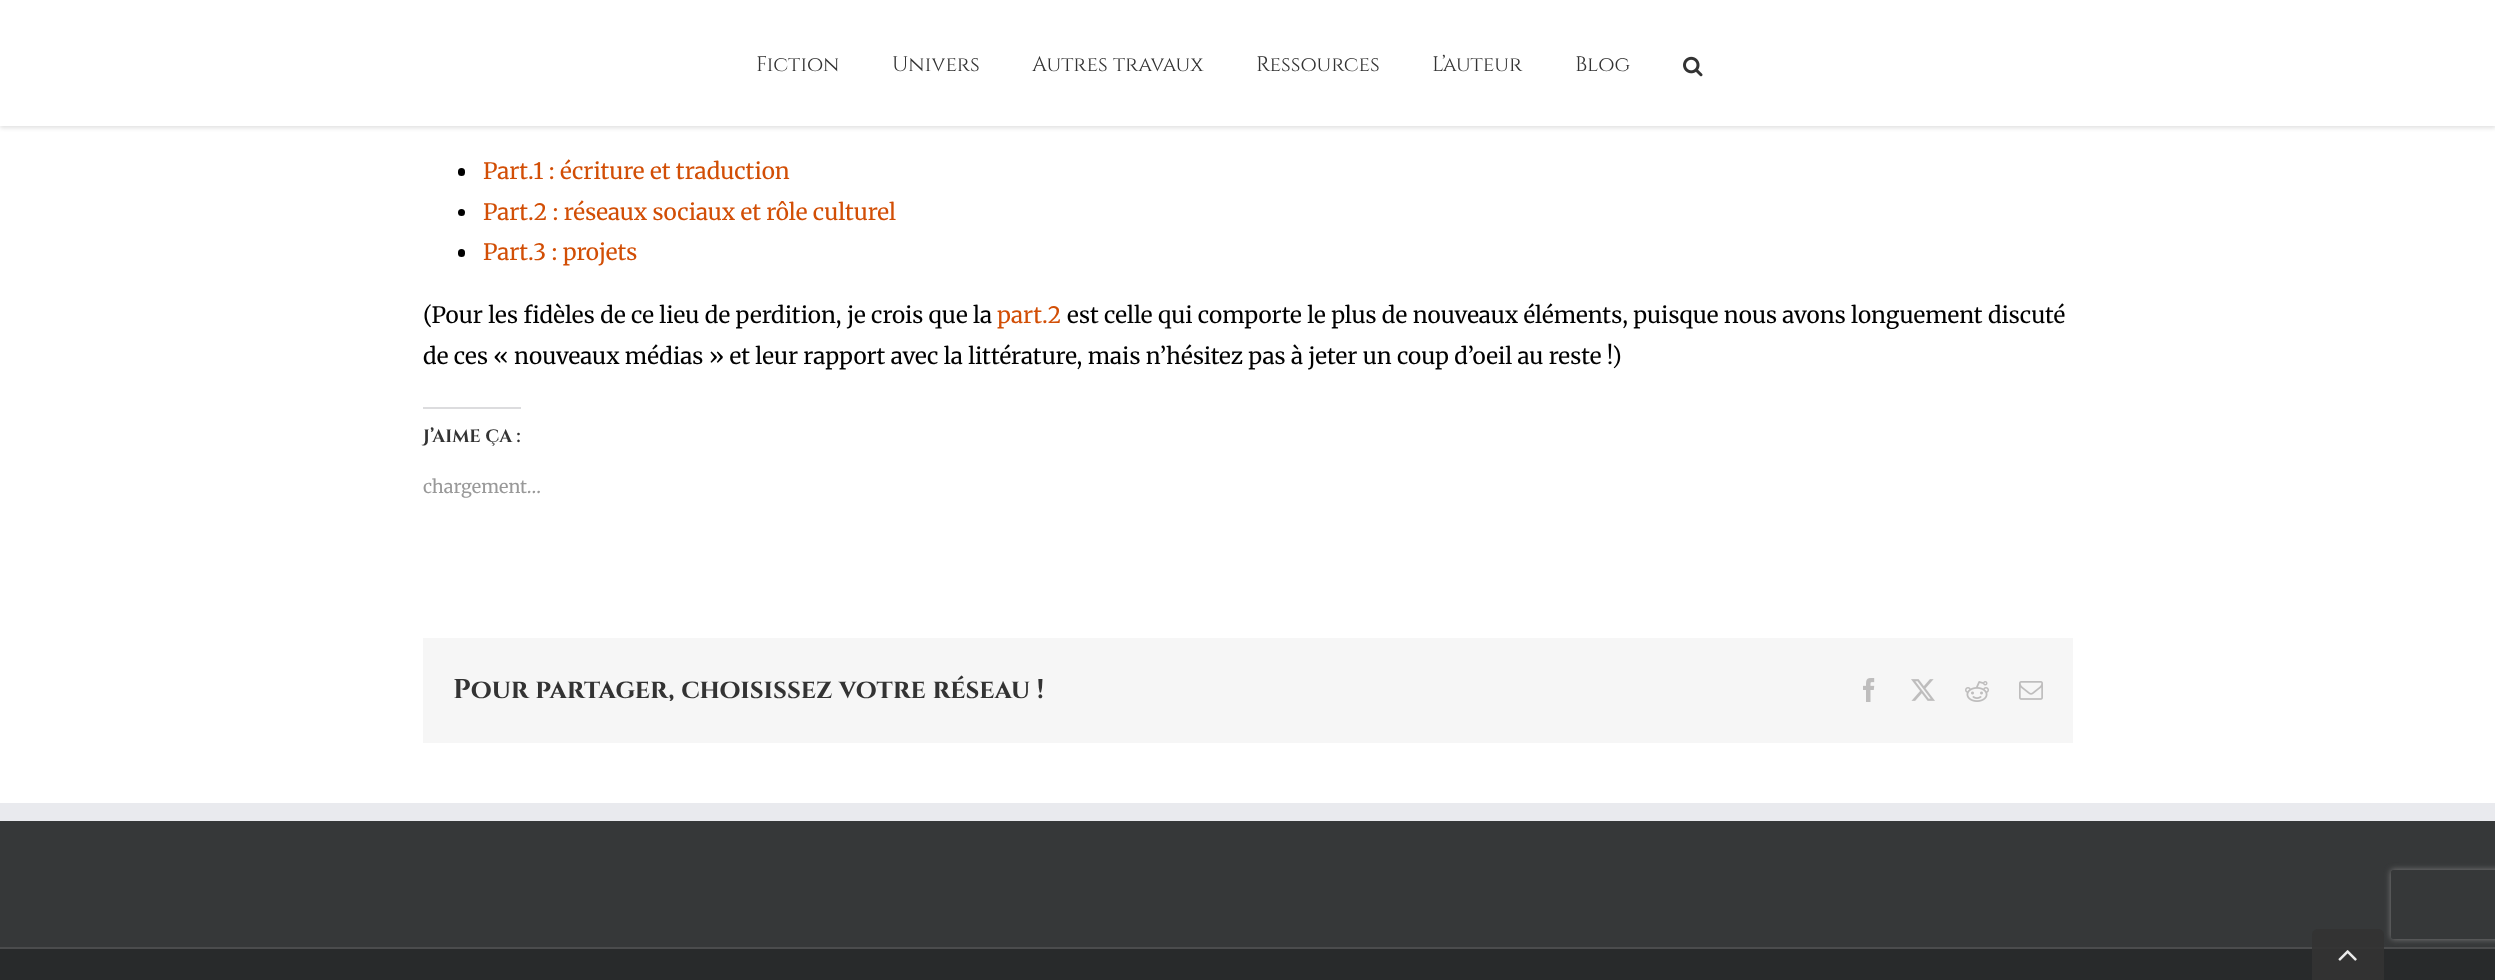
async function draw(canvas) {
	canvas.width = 2495;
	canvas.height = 980;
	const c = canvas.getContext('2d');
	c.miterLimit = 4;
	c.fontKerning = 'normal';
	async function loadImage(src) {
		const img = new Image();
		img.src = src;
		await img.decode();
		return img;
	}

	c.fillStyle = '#fff';
	c.fillRect(0, 0, 2495, 980);
	c.fillStyle = '#0000001f';
	c.filter = 'blur(2px)';
	c.beginPath();
	c.rect(0, 2, 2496, 126);
	c.fill();
	c.filter = 'none';
	c.fillStyle = '#fff';
	c.fillRect(0, 0, 2495, 126);
	c.font = '21px Cinzel';
	c.fillStyle = '#333';
	for (const [text, x, y] of [
		['Fiction', 756, 71],
		['Univers', 892, 71],
		['Autres travaux', 1032, 71],
		['Ressources', 1256, 71],
		['L’auteur', 1432, 71],
		['Blog', 1575, 71],
	]) {
		c.fillText(text, x, y);
	}
	c.drawImage(await loadImage('img1.png'), 1683, 56, 20, 21);
	c.fillStyle = '#000';
	c.beginPath();
	c.roundRect(458, 168, 7, 8, 3.5);
	c.fill();
	c.font = '300 22.5px Merriweather';
	c.fillStyle = '#d24e05';
	c.fillText('Part.1 : écriture et traduction', 483, 179);
	c.fillStyle = '#000';
	c.beginPath();
	c.arc(461.5, 212.5, 3.5, 0, 2 * Math.PI);
	c.fill();
	c.fillStyle = '#d24e05';
	c.fillText('Part.2 : réseaux sociaux et rôle culturel', 483, 220);
	c.fillStyle = '#000';
	c.beginPath();
	c.roundRect(458, 249, 7, 8, 3.5);
	c.fill();
	c.fillStyle = '#d24e05';
	c.fillText('Part.3 : projets', 483, 260);
	c.fillStyle = '#000';
	c.fillText('(Pour les fidèles de ce lieu de perdition, je crois que la', 423, 323);
	c.fillStyle = '#d24e05';
	c.fillText('part.2', 997, 323);
	c.fillStyle = '#000';
	c.fillText('est celle qui comporte le plus de nouveaux éléments, puisque nous avons longuement discuté', 1067, 323);
	c.fillText('de ces « nouveaux médias » et leur rapport avec la littérature, mais n’hésitez pas à jeter un coup d’oeil au reste !)', 423, 364);
	c.fillStyle = '#dcdcde';
	c.fillRect(423, 407, 98, 2);
	c.font = 'bold 18px Cinzel Decorative';
	c.fillStyle = '#333';
	c.fillText('J’aime ça :', 423, 442);
	c.font = '300 18px Merriweather';
	c.fillStyle = '#999';
	c.fillText('chargement…', 423, 493);
	c.fillStyle = '#f6f6f6';
	c.fillRect(423, 638, 1650, 105);
	c.font = 'bold 27px Cinzel';
	c.fillStyle = '#333';
	c.fillText('Pour partager, choisissez votre réseau !', 453, 698);
	c.drawImage(await loadImage('img2.png'), 1863, 678, 12, 24);
	c.drawImage(await loadImage('img3.png'), 1911, 679, 24, 22);
	c.drawImage(await loadImage('img4.png'), 1965, 681, 24, 21);
	c.drawImage(await loadImage('img5.png'), 2019, 681, 24, 19);
	for (const [x, y, w, h, color] of [
		[0, 821, 2495, 126, '#363839'],
		[0, 803, 2495, 18, '#e9eaee'],
		[0, 949, 2495, 31, '#282a2b'],
	]) {
		c.fillStyle = color;
		c.fillRect(x, y, w, h);
	}
	c.save();
	c.beginPath();
	c.moveTo(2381, 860);
	c.lineTo(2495, 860);
	c.lineTo(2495, 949);
	c.lineTo(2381, 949);
	c.closePath();
	c.moveTo(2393, 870);
	c.lineTo(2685, 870);
	c.bezierCurveTo(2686, 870, 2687, 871, 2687, 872);
	c.lineTo(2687, 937);
	c.bezierCurveTo(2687, 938, 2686, 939, 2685, 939);
	c.lineTo(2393, 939);
	c.bezierCurveTo(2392, 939, 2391, 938, 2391, 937);
	c.lineTo(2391, 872);
	c.bezierCurveTo(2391, 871, 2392, 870, 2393, 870);
	c.closePath();
	c.clip('evenodd');
	c.fillStyle = '#808080';
	c.filter = 'blur(3px)';
	c.beginPath();
	c.roundRect(2391, 870, 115, 69, 2);
	c.fill();
	c.filter = 'none';
	c.restore();
	c.fillStyle = '#4b4c4d';
	c.fillRect(0, 947, 2495, 2);
	c.fillStyle = '#333333e6';
	c.beginPath();
	c.moveTo(2318, 929);
	c.lineTo(2378, 929);
	c.bezierCurveTo(2381.5, 929, 2384, 931.5, 2384, 935);
	c.lineTo(2384, 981);
	c.lineTo(2312, 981);
	c.lineTo(2312, 935);
	c.bezierCurveTo(2312, 931.5, 2314.5, 929, 2318, 929);
	c.closePath();
	c.fill();
	c.drawImage(await loadImage('img6.png'), 2338, 950, 19, 11);
}

draw(document.querySelector('canvas'));
